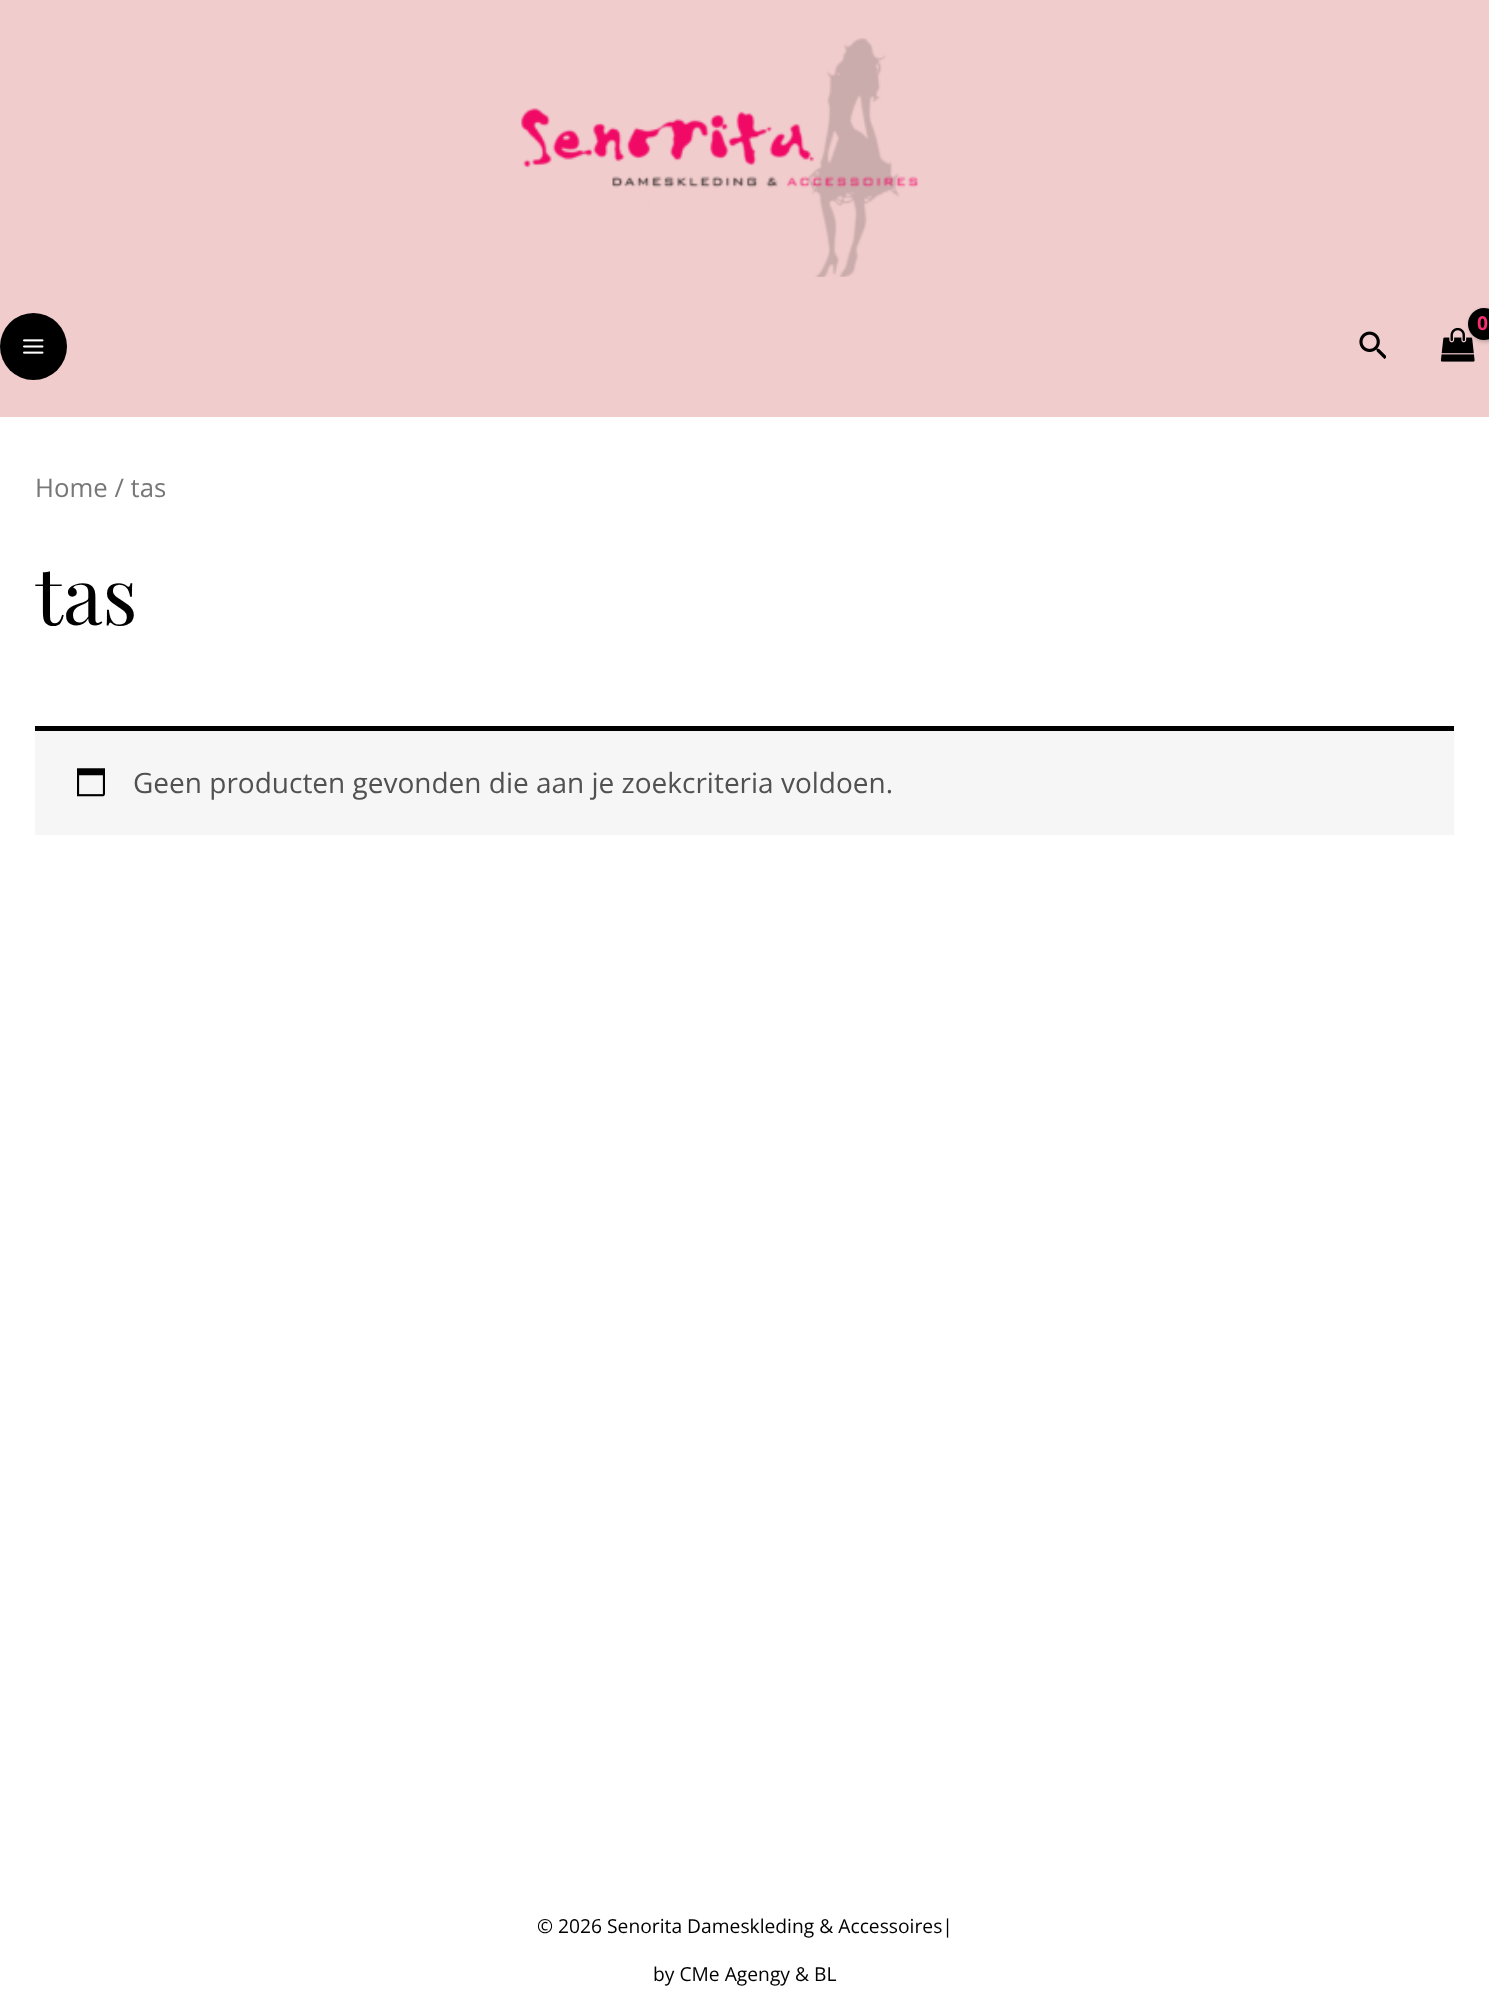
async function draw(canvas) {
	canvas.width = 1489;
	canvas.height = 2013;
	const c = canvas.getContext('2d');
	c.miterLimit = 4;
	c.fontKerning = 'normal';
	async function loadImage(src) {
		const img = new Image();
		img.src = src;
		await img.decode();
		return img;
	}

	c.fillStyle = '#fff';
	c.fillRect(0, 0, 1489, 2013);
	c.fillStyle = '#f1cccd';
	c.fillRect(0, 0, 1489, 417);
	c.drawImage(await loadImage('img1.png'), 520, 38, 399, 239);
	c.fillStyle = '#000';
	c.beginPath();
	c.arc(33.5, 346.5, 33.5, 0, 2 * Math.PI);
	c.fill();
	c.drawImage(await loadImage('img2.png'), 23, 339, 21, 15);
	c.drawImage(await loadImage('img3.png'), 1440, 327, 35, 35);
	c.fillStyle = '#0000004d';
	c.filter = 'blur(2.5px)';
	c.beginPath();
	c.roundRect(1470, 310, 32, 31, 15.5);
	c.fill();
	c.filter = 'none';
	c.fillStyle = '#000';
	c.beginPath();
	c.arc(1484, 324, 16, 0, 2 * Math.PI);
	c.fill();
	c.letterSpacing = '-1px';
	c.font = 'bold 19.25px Open Sans';
	c.fillStyle = '#f42e6f';
	c.fillText('0', 1477, 330);
	c.drawImage(await loadImage('img4.png'), 1359, 331, 27, 28);
	c.letterSpacing = '0px';
	c.font = '25.75px Open Sans';
	c.fillStyle = '#777';
	c.fillText('Home / tas', 35, 497);
	c.font = '79px Playfair Display';
	c.fillStyle = '#000';
	c.fillText('tas', 35, 625);
	c.fillStyle = '#f7f6f7';
	c.fillRect(35, 731, 1419, 104);
	c.fillStyle = '#000';
	c.fillRect(35, 726, 1419, 5);
	c.drawImage(await loadImage('img5.png'), 77, 768, 28, 29);
	c.font = '28px Open Sans';
	c.fillStyle = '#515151';
	c.fillText('Geen producten gevonden die aan je zoekcriteria voldoen.', 133, 793);
	c.font = '19.25px Open Sans';
	c.fillStyle = '#000';
	c.fillText('© 2026 Senorita Dameskleding & Accessoires|', 537, 1933);
	c.fillText('by CMe Agengy & BL', 653, 1981);
}

draw(document.querySelector('canvas'));
